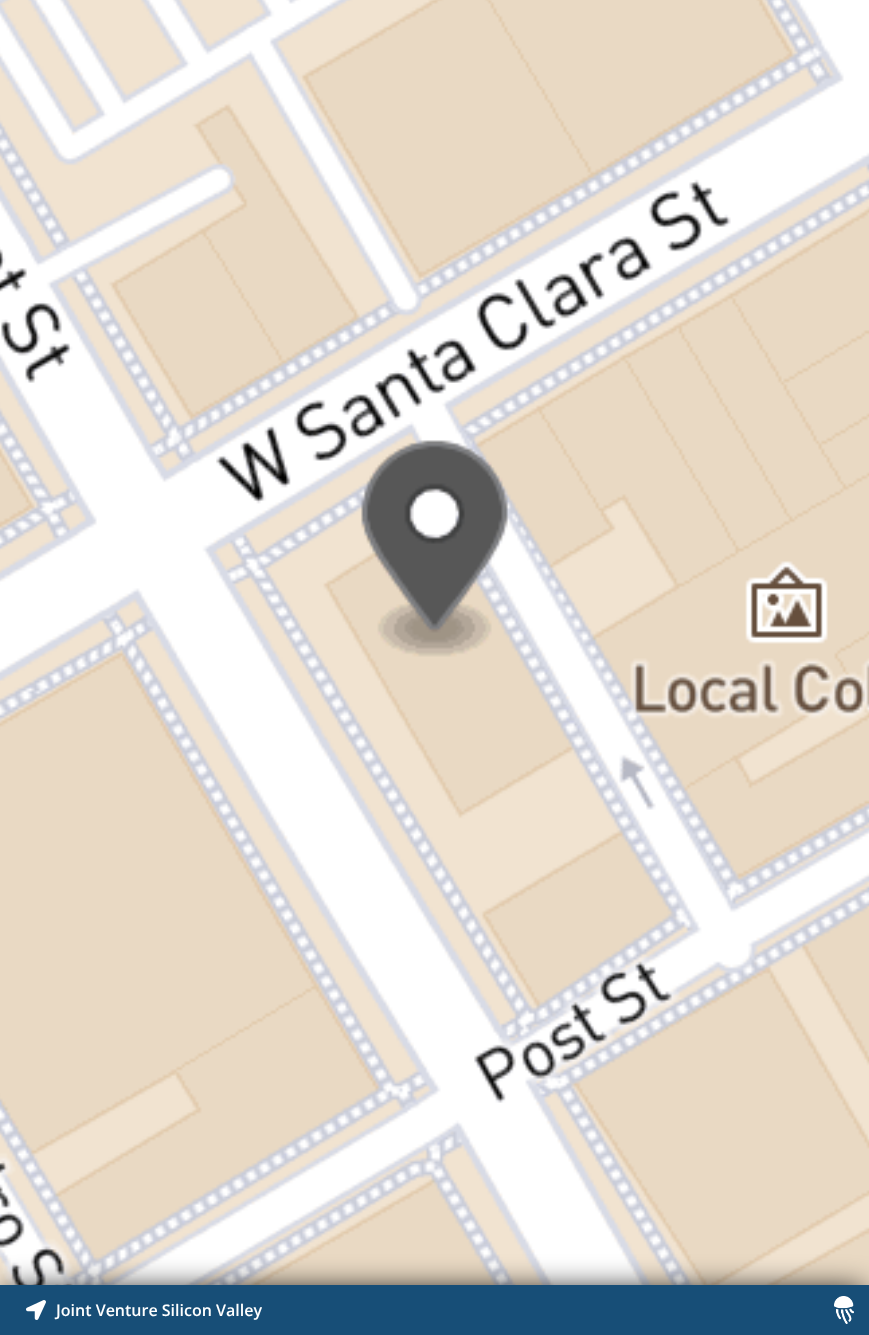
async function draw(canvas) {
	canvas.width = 869;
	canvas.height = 1335;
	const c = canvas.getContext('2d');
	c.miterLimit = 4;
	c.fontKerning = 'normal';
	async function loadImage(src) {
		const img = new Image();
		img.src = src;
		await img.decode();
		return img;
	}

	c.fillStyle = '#fff';
	c.fillRect(0, 0, 869, 1335);
	c.drawImage(await loadImage('img1.png'), 0, 0, 869, 1285);
	c.fillStyle = '#000';
	c.filter = 'blur(15px)';
	c.beginPath();
	c.rect(5, 1290, 859, 40);
	c.fill();
	c.filter = 'none';
	c.fillStyle = '#174e77';
	c.fillRect(0, 1285, 869, 50);
	c.drawImage(await loadImage('img2.png'), 26, 1300, 20, 20);
	c.font = '600 16px Open Sans';
	c.fillStyle = '#fff';
	c.fillText('Joint Venture Silicon Valley', 56, 1316);
	c.drawImage(await loadImage('img3.png'), 834, 1296, 20, 28);
}

draw(document.querySelector('canvas'));
